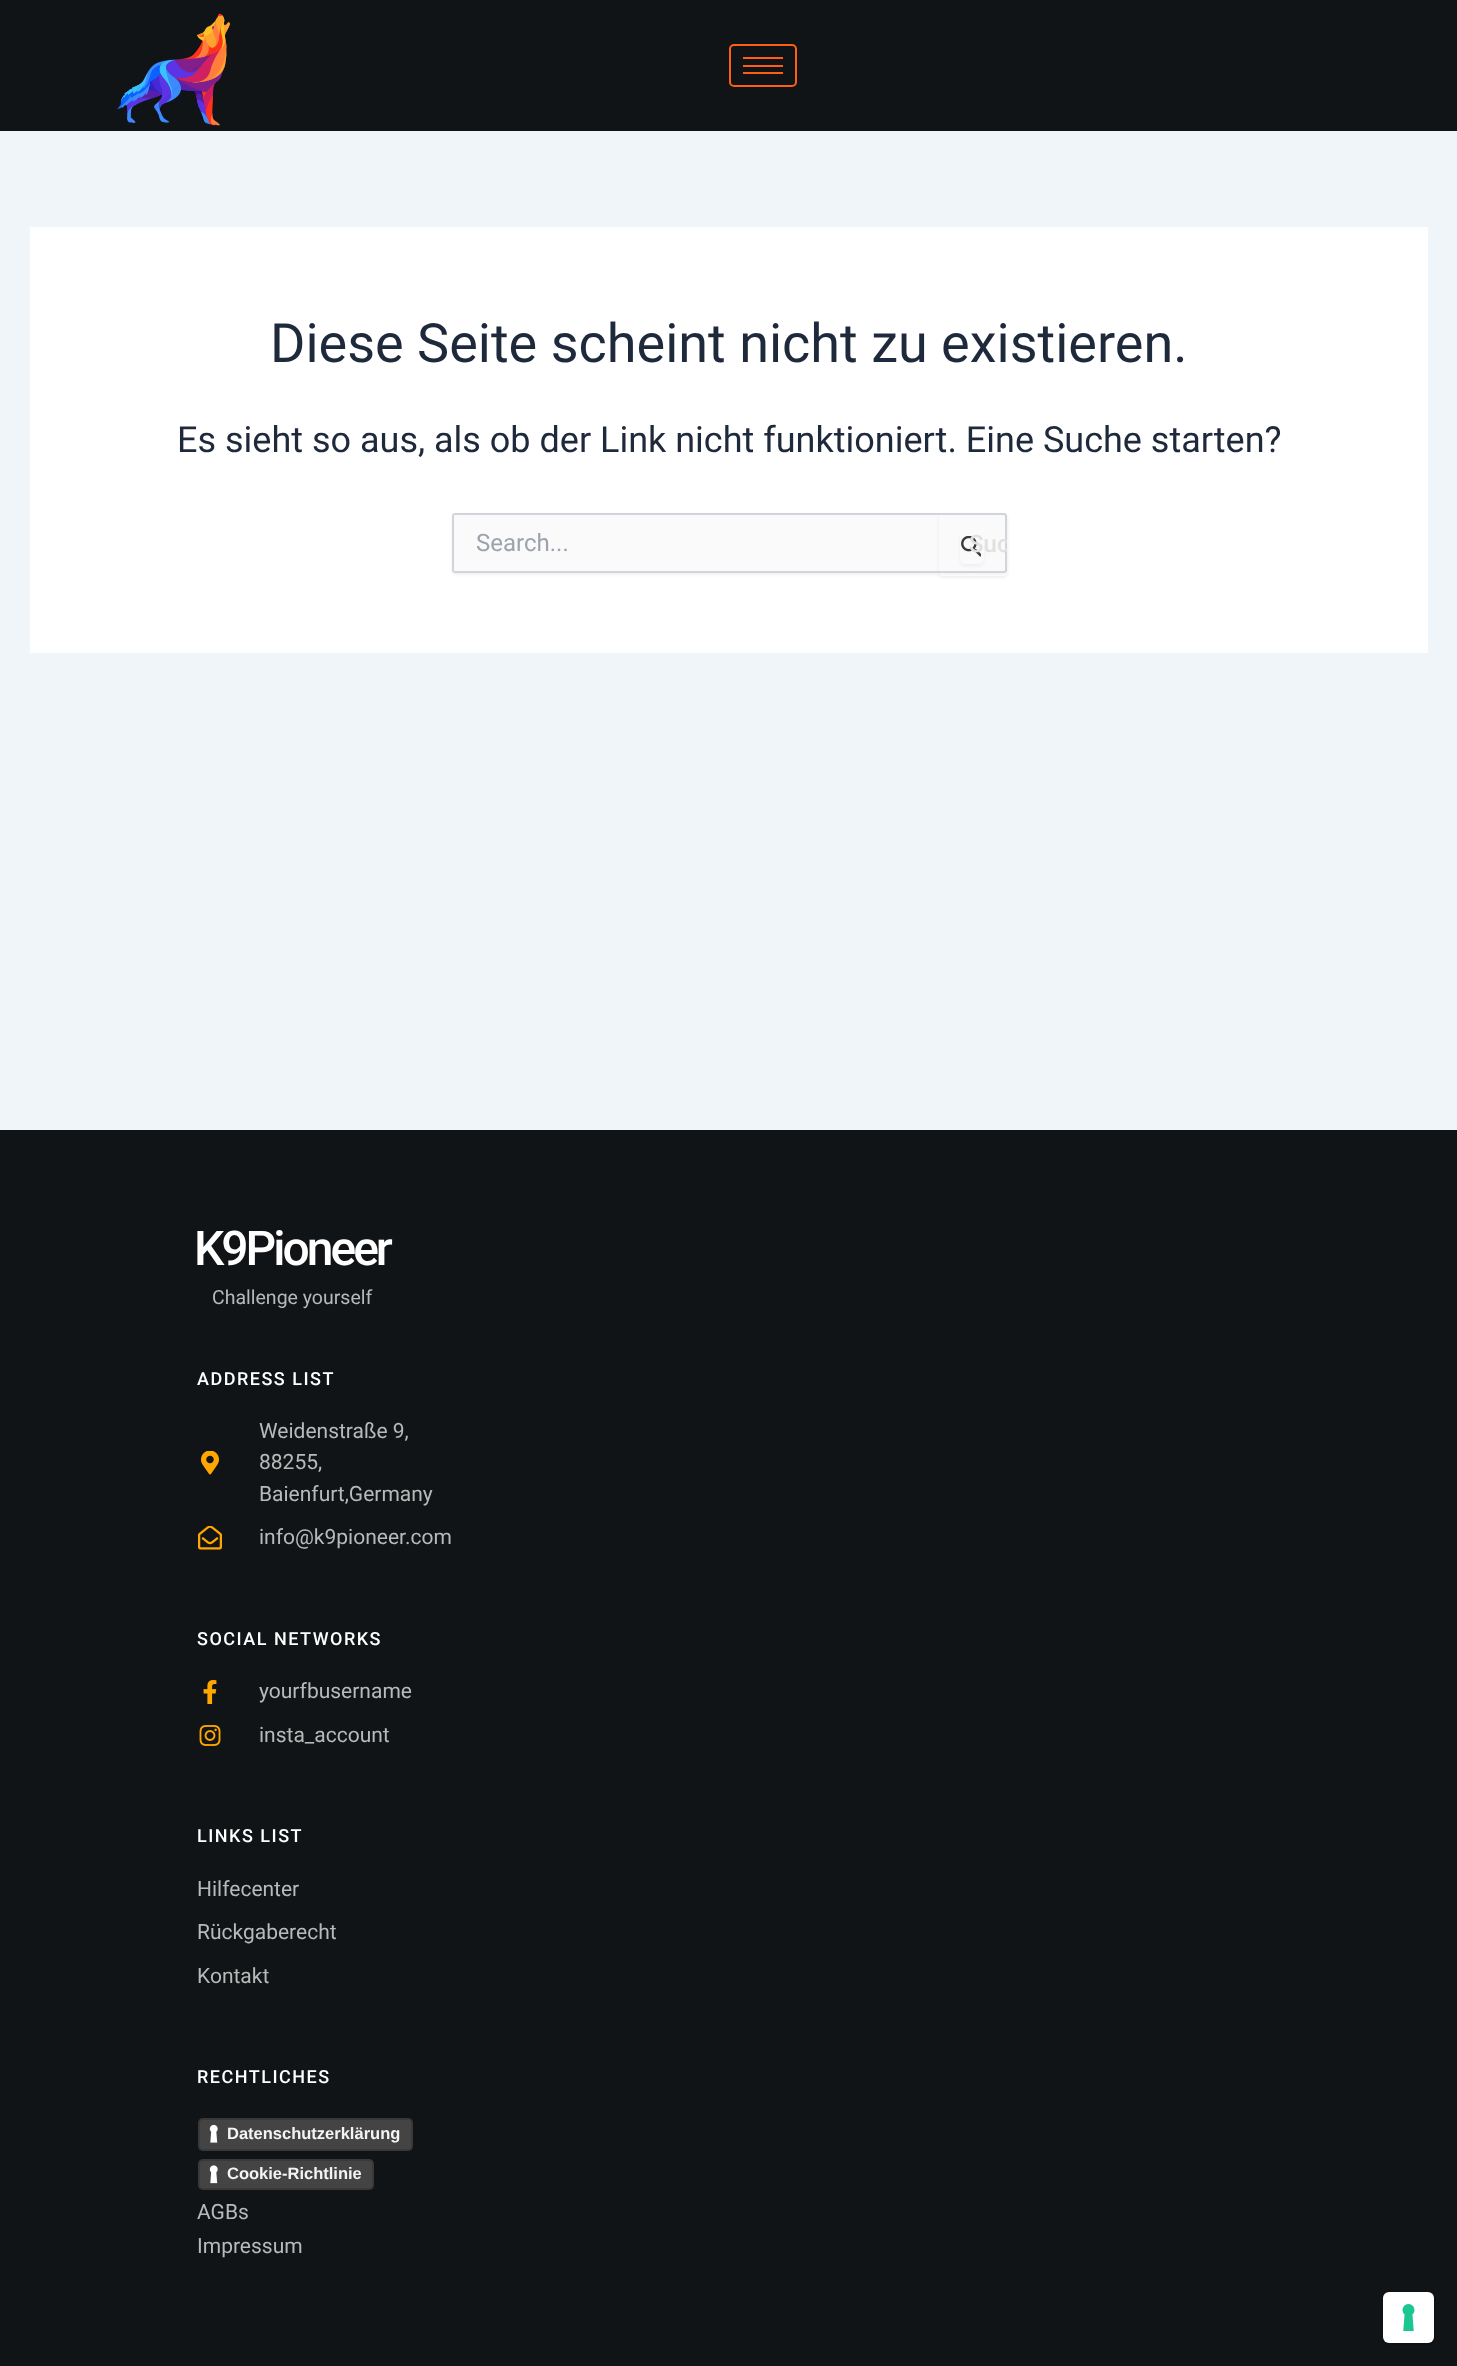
async function draw(canvas) {
	canvas.width = 1457;
	canvas.height = 2366;
	const c = canvas.getContext('2d');
	c.miterLimit = 4;
	c.fontKerning = 'normal';
	async function loadImage(src) {
		const img = new Image();
		img.src = src;
		await img.decode();
		return img;
	}

	c.fillStyle = '#f0f5fa';
	c.fillRect(0, 0, 1457, 2366);
	c.fillStyle = '#111416';
	c.fillRect(0, 0, 1457, 131);
	c.drawImage(await loadImage('img1.png'), 117, 13, 113, 113);
	c.beginPath();
	c.roundRect(730, 45, 66, 41, 4);
	c.strokeStyle = '#ff5e13';
	c.lineWidth = 2;
	c.stroke();
	for (const [x, y, w, h, color] of [
		[743, 57, 40, 2, '#ff5e13'],
		[743, 65, 40, 2, '#ff5e13'],
		[743, 72, 40, 2, '#ff5e13'],
		[30, 227, 1398, 426, '#fff'],
	]) {
		c.fillStyle = color;
		c.fillRect(x, y, w, h);
	}
	c.font = '54px Roboto';
	c.fillStyle = '#1e293b';
	c.fillText('Diese Seite scheint nicht zu existieren.', 270, 362);
	c.font = '36px Roboto';
	c.fillText('Es sieht so aus, als ob der Link nicht funktioniert. Eine Suche starten?', 177, 452);
	c.fillStyle = '#0000000d';
	c.filter = 'blur(1.5px)';
	c.beginPath();
	c.roundRect(452, 515, 555, 60, 3);
	c.fill();
	c.filter = 'none';
	c.fillStyle = '#fafafa';
	c.beginPath();
	c.roundRect(453, 514, 553, 58, 2);
	c.fill();
	c.strokeStyle = '#d1d5db';
	c.stroke();
	c.font = '24px Roboto';
	c.fillStyle = '#9ca3af';
	c.fillText('Search...', 476, 551);
	c.save();
	c.beginPath();
	c.moveTo(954, 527);
	c.lineTo(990, 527);
	c.lineTo(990, 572);
	c.lineTo(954, 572);
	c.closePath();
	c.moveTo(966, 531);
	c.lineTo(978, 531);
	c.bezierCurveTo(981.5, 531, 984, 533.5, 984, 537);
	c.lineTo(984, 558);
	c.bezierCurveTo(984, 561.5, 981.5, 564, 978, 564);
	c.lineTo(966, 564);
	c.bezierCurveTo(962.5, 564, 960, 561.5, 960, 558);
	c.lineTo(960, 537);
	c.bezierCurveTo(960, 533.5, 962.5, 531, 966, 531);
	c.closePath();
	c.clip('evenodd');
	c.fillStyle = '#0000000d';
	c.filter = 'blur(1.5px)';
	c.beginPath();
	c.roundRect(960, 533, 24, 33, 6);
	c.fill();
	c.filter = 'none';
	c.restore();
	c.drawImage(await loadImage('img2.png'), 961, 536, 20, 21);
	c.save();
	c.beginPath();
	c.moveTo(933, 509);
	c.lineTo(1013, 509);
	c.lineTo(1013, 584);
	c.lineTo(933, 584);
	c.closePath();
	c.moveTo(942, 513);
	c.lineTo(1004, 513);
	c.bezierCurveTo(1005.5, 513, 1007, 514.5, 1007, 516);
	c.lineTo(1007, 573);
	c.bezierCurveTo(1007, 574.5, 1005.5, 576, 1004, 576);
	c.lineTo(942, 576);
	c.bezierCurveTo(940.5, 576, 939, 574.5, 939, 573);
	c.lineTo(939, 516);
	c.bezierCurveTo(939, 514.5, 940.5, 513, 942, 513);
	c.closePath();
	c.clip('evenodd');
	c.fillStyle = '#0000000d';
	c.filter = 'blur(1.5px)';
	c.beginPath();
	c.roundRect(939, 515, 68, 63, 3);
	c.fill();
	c.filter = 'none';
	c.restore();
	c.save();
	c.beginPath();
	c.roundRect(939, 513, 68, 63, 3);
	c.clip();
	c.font = '500 24px Roboto';
	c.fillStyle = '#e1e1e1';
	c.fillText('Suc', 969, 552);
	c.restore();
	c.fillStyle = '#111416';
	c.fillRect(0, 1130, 1457, 1236);
	c.letterSpacing = '-3px';
	c.font = '500 48px Roboto';
	c.fillStyle = '#fff';
	c.fillText('K9Pioneer', 194, 1265);
	c.letterSpacing = '0px';
	c.font = '19.5px Roboto';
	c.fillStyle = '#b8b9b9';
	c.fillText('Challenge yourself', 212, 1304);
	c.letterSpacing = '1.5px';
	c.font = '500 18px Roboto';
	c.fillStyle = '#fff';
	c.fillText('ADDRESS LIST', 197, 1385);
	c.drawImage(await loadImage('img3.png'), 201, 1451, 18, 24);
	c.letterSpacing = '0px';
	c.font = '21px Roboto';
	c.fillStyle = '#b8b9b9';
	for (const [text, x, y] of [
		['Weidenstraße 9,', 259, 1438],
		['88255,', 259, 1469],
		['Baienfurt,Germany', 259, 1501],
	]) {
		c.fillText(text, x, y);
	}
	c.drawImage(await loadImage('img4.png'), 198, 1526, 24, 24);
	c.fillText('info@k9pioneer.com', 259, 1544);
	c.letterSpacing = '1.5px';
	c.font = '500 18px Roboto';
	c.fillStyle = '#fff';
	c.fillText('SOCIAL NETWORKS', 197, 1645);
	c.drawImage(await loadImage('img5.png'), 203, 1680, 14, 24);
	c.letterSpacing = '0px';
	c.font = '21px Roboto';
	c.fillStyle = '#b8b9b9';
	c.fillText('yourfbusername', 259, 1698);
	c.drawImage(await loadImage('img6.png'), 199, 1725, 22, 21);
	c.fillText('insta_account', 259, 1742);
	c.letterSpacing = '1.5px';
	c.font = '500 18px Roboto';
	c.fillStyle = '#fff';
	c.fillText('LINKS LIST', 197, 1842);
	c.letterSpacing = '0px';
	c.font = '21px Roboto';
	c.fillStyle = '#b8b9b9';
	for (const [text, x, y] of [
		['Hilfecenter', 197, 1896],
		['Rückgaberecht', 197, 1939],
		['Kontakt', 197, 1983],
	]) {
		c.fillText(text, x, y);
	}
	c.letterSpacing = '1.5px';
	c.font = '500 18px Roboto';
	c.fillStyle = '#fff';
	c.fillText('RECHTLICHES', 197, 2083);
	c.fillStyle = '#444';
	c.beginPath();
	c.roundRect(198, 2118, 215, 33, 5);
	c.fill();
	c.drawImage(await loadImage('img7.png'), 209, 2124, 9, 19);
	c.beginPath();
	c.roundRect(199, 2119, 213, 31, 4);
	c.strokeStyle = '#00000026';
	c.stroke();
	c.letterSpacing = '0px';
	c.font = 'bold 16.5px Liberation Sans';
	c.fillStyle = '#f4f4f4';
	c.fillText('Datenschutzerklärung', 227, 2139);
	c.fillStyle = '#444';
	c.beginPath();
	c.roundRect(198, 2159, 176, 31, 5);
	c.fill();
	c.drawImage(await loadImage('img8.png'), 209, 2165, 9, 19);
	c.beginPath();
	c.roundRect(199, 2160, 174, 29, 4);
	c.stroke();
	c.fillStyle = '#f4f4f4';
	c.fillText('Cookie-Richtlinie', 227, 2179);
	c.font = '21px Roboto';
	c.fillStyle = '#b8b9b9';
	c.fillText('AGBs', 197, 2219);
	c.fillText('Impressum', 197, 2253);
	c.beginPath();
	c.roundRect(1383, 2292, 52, 52, 7);
	c.strokeStyle = '#0e1113';
	c.stroke();
	c.fillStyle = '#fff';
	c.beginPath();
	c.roundRect(1383, 2292, 51, 51, 6);
	c.fill();
	c.drawImage(await loadImage('img9.png'), 1402, 2304, 13, 27);
}

draw(document.querySelector('canvas'));
